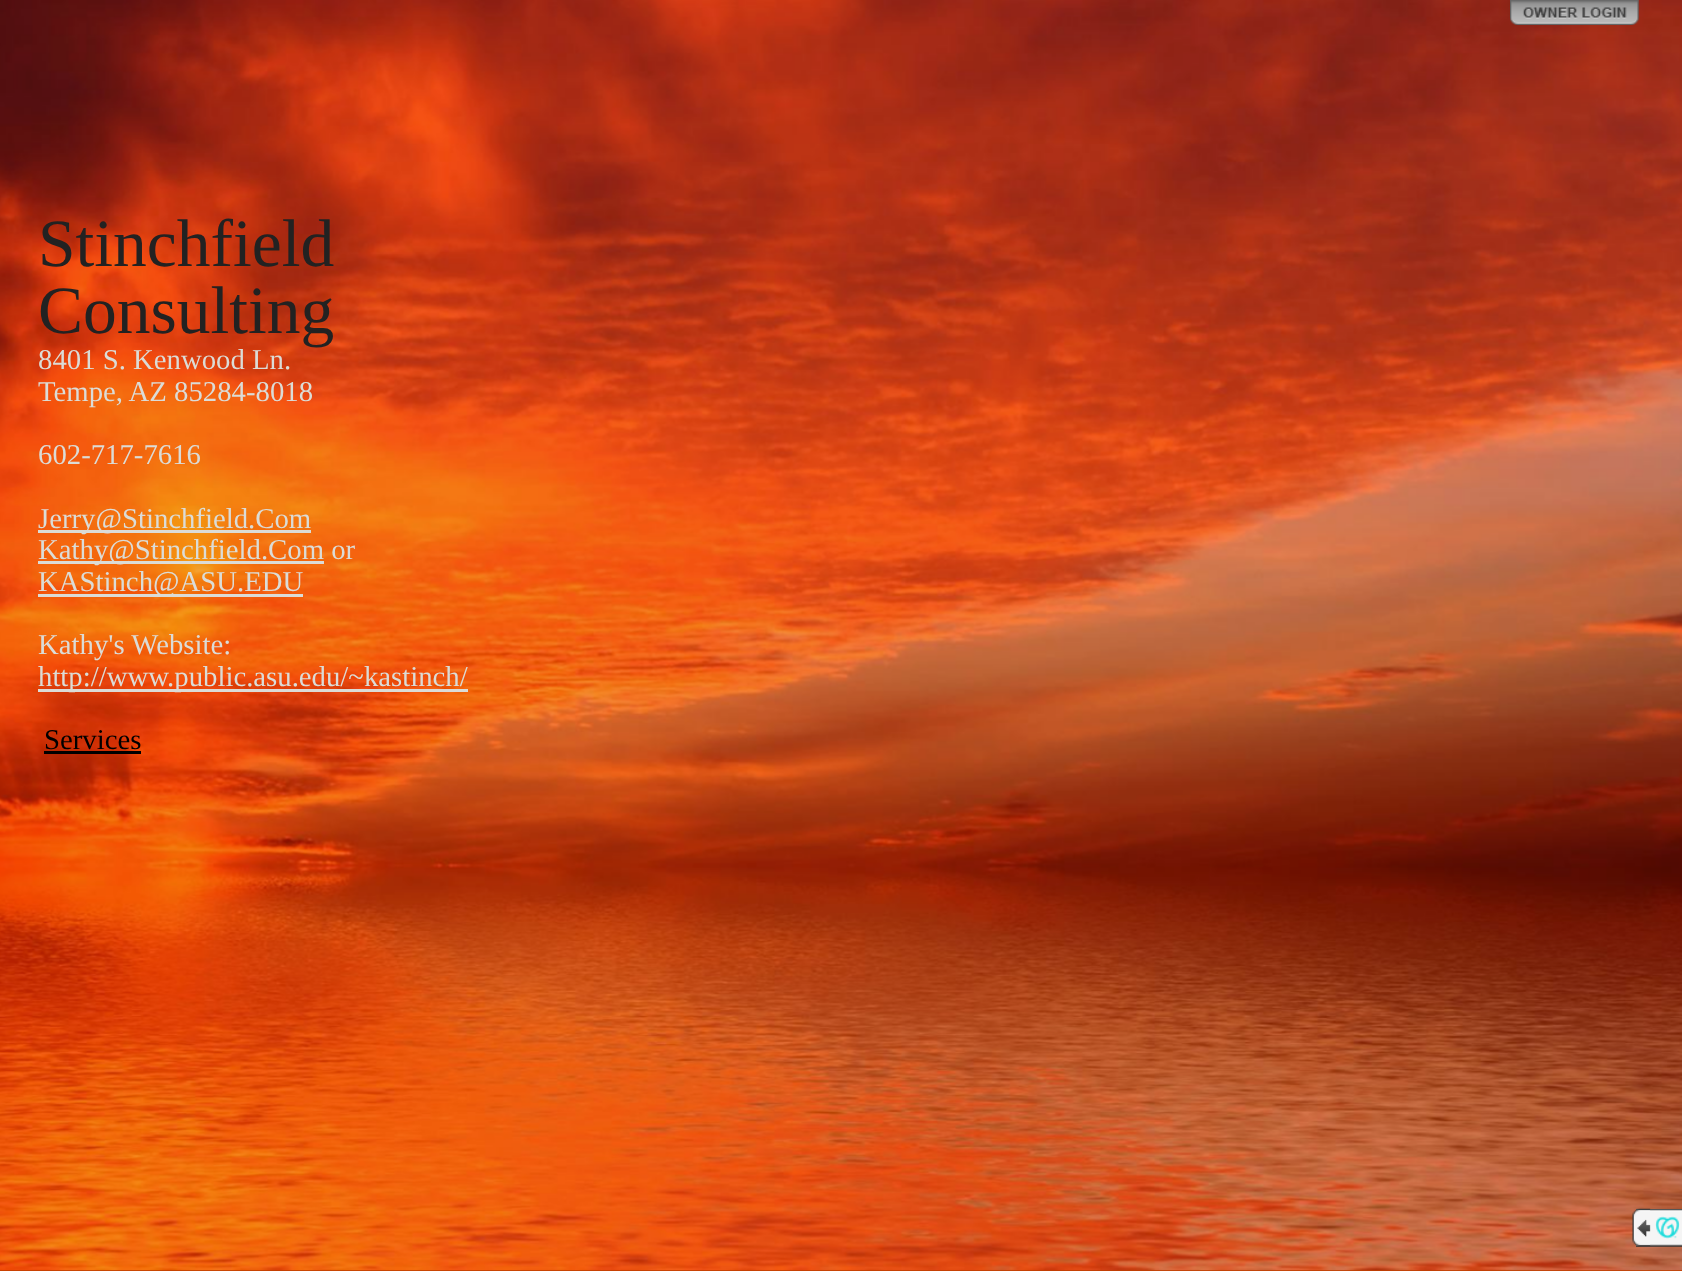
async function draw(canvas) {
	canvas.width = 1682;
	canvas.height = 1271;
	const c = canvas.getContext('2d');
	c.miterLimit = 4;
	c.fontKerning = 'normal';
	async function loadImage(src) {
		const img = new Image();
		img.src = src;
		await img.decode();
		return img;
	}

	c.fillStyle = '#c13f01';
	c.fillRect(0, 0, 1682, 1271);
	c.drawImage(await loadImage('img1.png'), 0, 0, 1682, 1271);
	c.drawImage(await loadImage('img2.png'), 1510, 0, 129, 25);
	c.font = '67.5px Liberation Serif';
	c.fillStyle = '#222';
	c.fillText('Stinchfield', 38, 266);
	c.fillText('Consulting', 38, 333);
	c.font = '28.75px Liberation Serif';
	c.fillStyle = '#dbdcd7';
	for (const [text, x, y] of [
		['8401 S. Kenwood Ln.', 38, 369],
		['Tempe, AZ 85284-8018', 38, 401],
		['602-717-7616', 38, 464],
	]) {
		c.fillText(text, x, y);
	}
	c.fillRect(38, 530, 273, 3);
	c.fillText('Jerry@Stinchfield.Com', 38, 528);
	c.fillRect(38, 561, 286, 3);
	c.fillText('Kathy@Stinchfield.Com or', 38, 559);
	c.fillRect(38, 594, 265, 3);
	c.fillText('KAStinch@ASU.EDU', 38, 591);
	c.fillText('Kathy\'s Website:', 38, 654);
	c.fillRect(38, 689, 430, 3);
	c.fillText('http://www.public.asu.edu/~kastinch/', 38, 686);
	c.fillStyle = '#000';
	c.fillText('Services', 44, 749);
	c.fillRect(44, 751, 97, 3);
	c.drawImage(await loadImage('img3.png'), 1636, 1209, 46, 38);
	c.drawImage(await loadImage('img4.png'), 1636, 1245, 46, 2);
	c.drawImage(await loadImage('img5.png'), 1632, 1208, 19, 39);
	c.drawImage(await loadImage('img6.png'), 1655, 1216, 25, 23);
}

draw(document.querySelector('canvas'));
